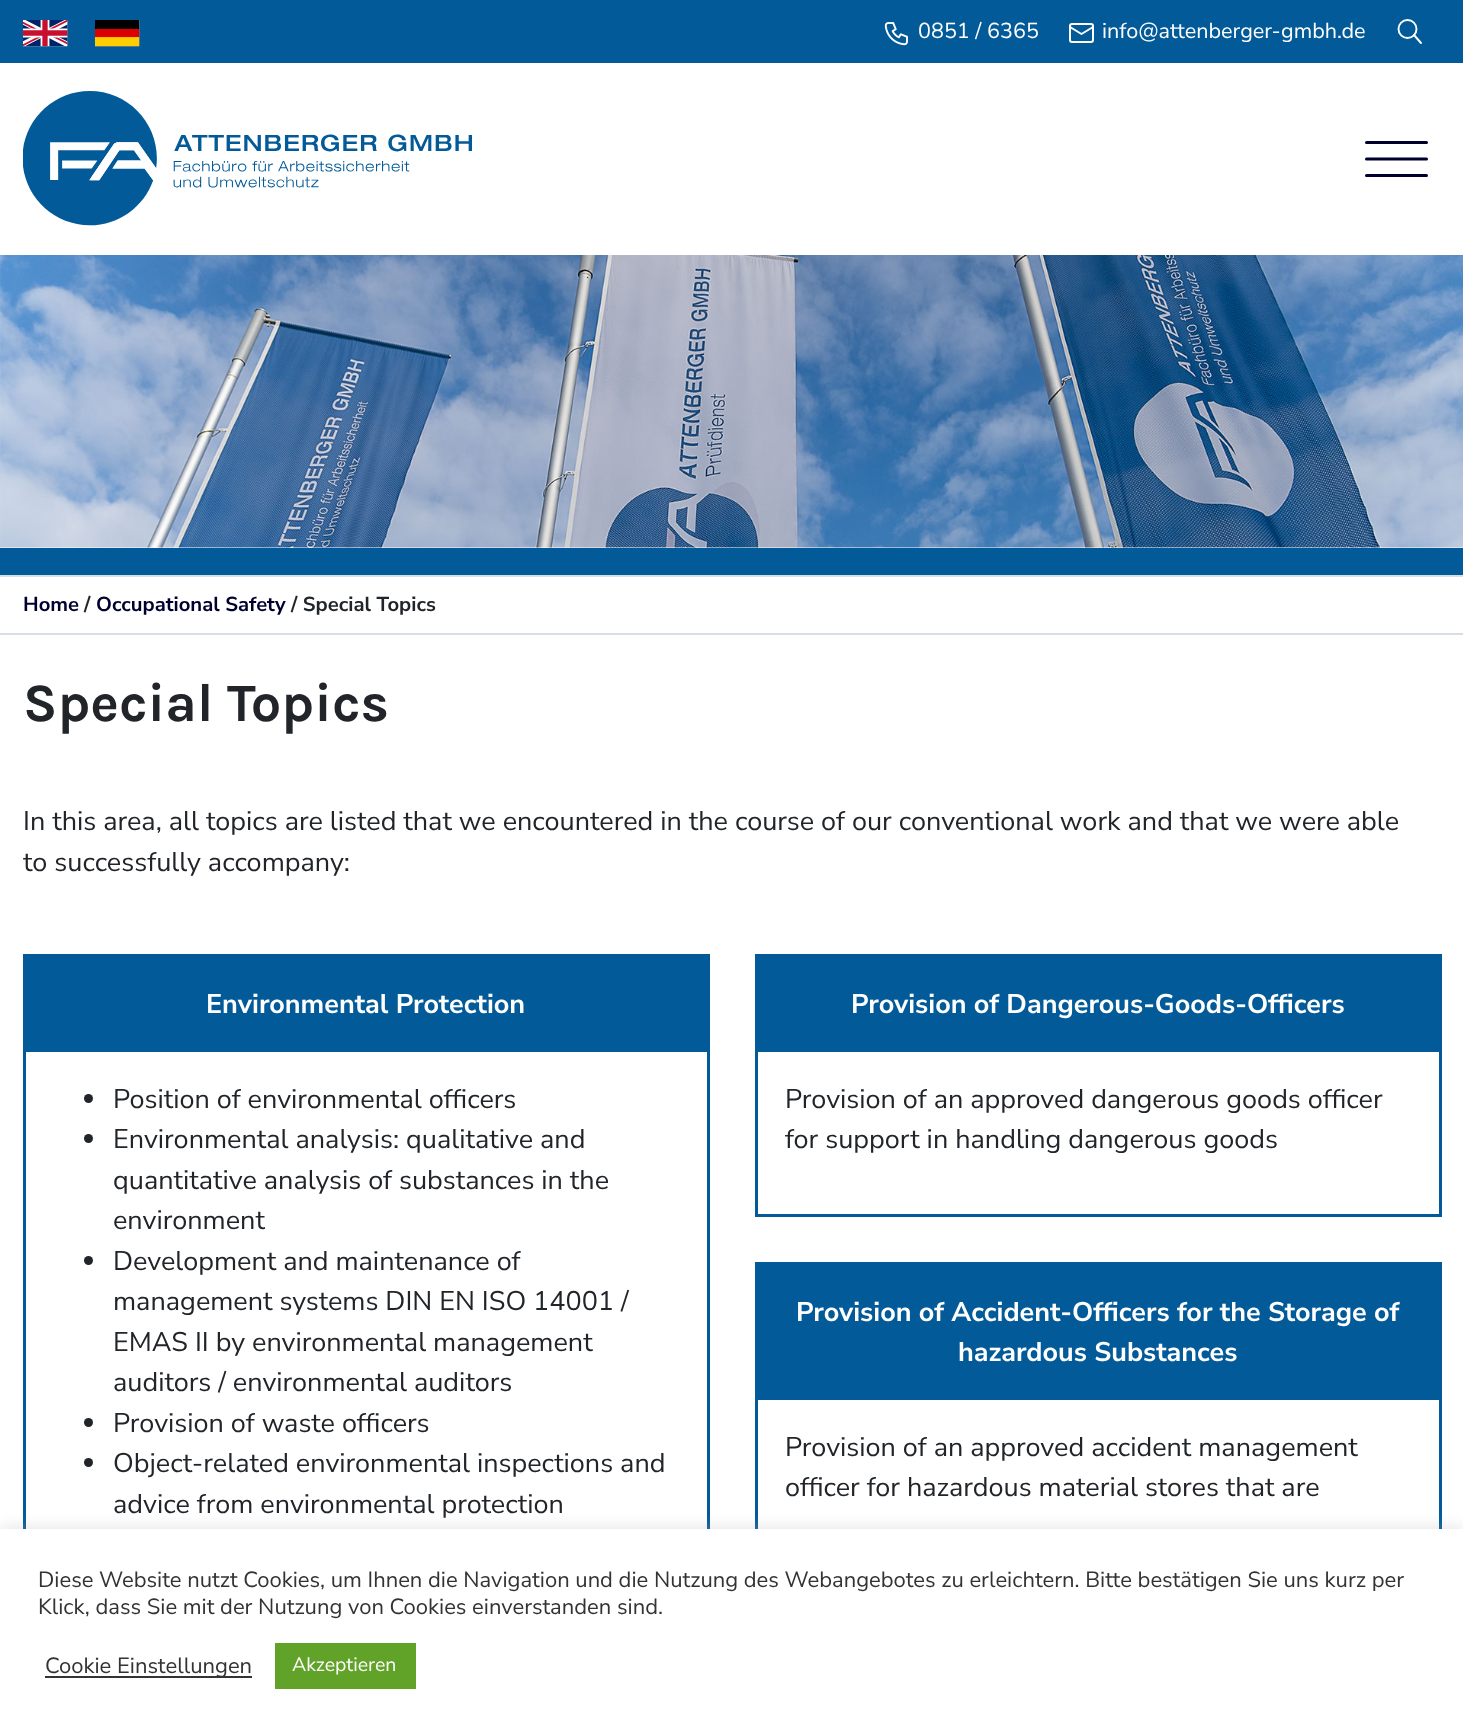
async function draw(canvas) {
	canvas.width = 1463;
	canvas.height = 1734;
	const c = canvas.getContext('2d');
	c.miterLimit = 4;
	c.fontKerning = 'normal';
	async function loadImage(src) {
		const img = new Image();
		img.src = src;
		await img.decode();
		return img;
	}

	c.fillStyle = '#fff';
	c.fillRect(0, 0, 1463, 1734);
	c.fillStyle = '#025a99';
	c.fillRect(0, 0, 1463, 63);
	c.drawImage(await loadImage('img1.png'), 23, 20, 45, 27);
	c.drawImage(await loadImage('img2.png'), 95, 20, 45, 27);
	c.drawImage(await loadImage('img3.png'), 884, 22, 24, 24);
	c.font = '21.6px Nunito Sans';
	c.fillStyle = '#fff';
	c.fillText('0851 / 6365', 918, 38);
	c.beginPath();
	c.roundRect(1070, 24, 23, 18, 2);
	c.strokeStyle = '#fff';
	c.lineWidth = 2;
	c.stroke();
	c.fillText('info@attenberger-gmbh.de', 1102, 38);
	c.beginPath();
	c.moveTo(1070, 27);
	c.lineTo(1081.5, 34);
	c.lineTo(1093, 27);
	c.lineWidth = 1.9;
	c.lineCap = 'round';
	c.lineJoin = 'round';
	c.stroke();
	c.beginPath();
	c.arc(1407.5, 29, 9, 0, 2 * Math.PI);
	c.stroke();
	c.beginPath();
	c.moveTo(1421, 43);
	c.lineTo(1414, 35);
	c.stroke();
	c.drawImage(await loadImage('img4.png'), 23, 91, 449, 135);
	c.beginPath();
	c.moveTo(1366.5, 142.5);
	c.lineTo(1426.5, 142.5);
	c.moveTo(1366.5, 159);
	c.lineTo(1426.5, 159);
	c.moveTo(1366.5, 175.5);
	c.lineTo(1426.5, 175.5);
	c.strokeStyle = '#00002e';
	c.lineWidth = 3;
	c.stroke();
	c.drawImage(await loadImage('img5.png'), 0, 255, 1463, 293);
	for (const [x, y, w, h, color] of [
		[0, 548, 1463, 27, '#025a99'],
		[0, 575, 1463, 2, '#d7dee5'],
		[0, 633, 1463, 2, '#d7dee5'],
	]) {
		c.fillStyle = color;
		c.fillRect(x, y, w, h);
	}
	c.font = 'bold 20.25px Nunito Sans';
	c.fillStyle = '#00002e';
	c.fillText('Home', 23, 611);
	c.fillStyle = '#212529';
	c.fillText('/', 84, 611);
	c.fillStyle = '#00002e';
	c.fillText('Occupational Safety', 96, 611);
	c.fillStyle = '#212529';
	c.fillText('/ Special Topics', 291, 611);
	c.font = 'bold 54px Karla';
	c.fillText('Special Topics', 23, 721);
	c.font = '27px Nunito Sans';
	c.fillText('In this area, all topics are listed that we encountered in the course of our conventional work and that we were able', 23, 830);
	c.fillText('to successfully accompany:', 23, 871);
	c.strokeStyle = '#025a99';
	c.lineJoin = 'miter';
	c.strokeRect(24.5, 955.5, 684, 692);
	c.fillStyle = '#025a99';
	c.fillRect(26, 957, 681, 95);
	c.font = 'bold 27px Nunito Sans';
	c.fillStyle = '#fff';
	c.fillText('Environmental Protection', 206, 1013);
	c.fillStyle = '#212529';
	c.beginPath();
	c.arc(88.5, 1098.5, 4.5, 0, 2 * Math.PI);
	c.fill();
	c.font = '27px Nunito Sans';
	c.fillText('Position of environmental officers', 113, 1108);
	c.beginPath();
	c.arc(88.5, 1138.5, 4.5, 0, 2 * Math.PI);
	c.fill();
	for (const [text, x, y] of [
		['Environmental analysis: qualitative and', 113, 1148],
		['quantitative analysis of substances in the', 113, 1189],
		['environment', 113, 1229],
	]) {
		c.fillText(text, x, y);
	}
	c.beginPath();
	c.arc(88.5, 1260.5, 4.5, 0, 2 * Math.PI);
	c.fill();
	for (const [text, x, y] of [
		['Development and maintenance of', 113, 1270],
		['management systems DIN EN ISO 14001 /', 113, 1310],
		['EMAS II by environmental management', 113, 1351],
		['auditors / environmental auditors', 113, 1391],
	]) {
		c.fillText(text, x, y);
	}
	c.beginPath();
	c.arc(88.5, 1422.5, 4.5, 0, 2 * Math.PI);
	c.fill();
	c.fillText('Provision of waste officers', 113, 1432);
	c.beginPath();
	c.arc(88.5, 1462.5, 4.5, 0, 2 * Math.PI);
	c.fill();
	c.fillText('Object-related environmental inspections and', 113, 1472);
	c.fillText('advice from environmental protection', 113, 1513);
	c.strokeRect(756.5, 955.5, 684, 260);
	c.fillStyle = '#025a99';
	c.fillRect(758, 957, 681, 95);
	c.font = 'bold 27px Nunito Sans';
	c.fillStyle = '#fff';
	c.fillText('Provision of Dangerous-Goods-Officers', 851, 1013);
	c.font = '27px Nunito Sans';
	c.fillStyle = '#212529';
	c.fillText('Provision of an approved dangerous goods officer', 785, 1108);
	c.fillText('for support in handling dangerous goods', 785, 1148);
	c.strokeRect(756.5, 1263.5, 684, 381);
	c.fillStyle = '#025a99';
	c.fillRect(758, 1265, 681, 135);
	c.font = 'bold 27px Nunito Sans';
	c.fillStyle = '#fff';
	c.fillText('Provision of Accident-Officers for the Storage of', 796, 1321);
	c.fillText('hazardous Substances', 958, 1361);
	c.font = '27px Nunito Sans';
	c.fillStyle = '#212529';
	c.fillText('Provision of an approved accident management', 785, 1456);
	c.fillText('officer for hazardous material stores that are', 785, 1496);
	c.fillStyle = '#acabab4d';
	c.filter = 'blur(7.5px)';
	c.beginPath();
	c.rect(0, 1527, 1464, 206);
	c.fill();
	c.filter = 'none';
	c.fillStyle = '#fff';
	c.fillRect(0, 1529, 1463, 205);
	c.font = '22px Nunito Sans';
	c.fillStyle = '#333';
	c.fillText('Diese Website nutzt Cookies, um Ihnen die Navigation und die Nutzung des Webangebotes zu erleichtern. Bitte bestätigen Sie uns kurz per', 38, 1587);
	c.fillText('Klick, dass Sie mit der Nutzung von Cookies einverstanden sind.', 38, 1614);
	c.fillRect(45, 1676, 207, 2);
	c.fillText('Cookie Einstellungen', 45, 1673);
	c.fillStyle = '#61a229';
	c.fillRect(275, 1643, 141, 46);
	c.font = '19.5px Nunito Sans';
	c.fillStyle = '#fff';
	c.fillText('Akzeptieren', 292, 1671);
}

draw(document.querySelector('canvas'));
